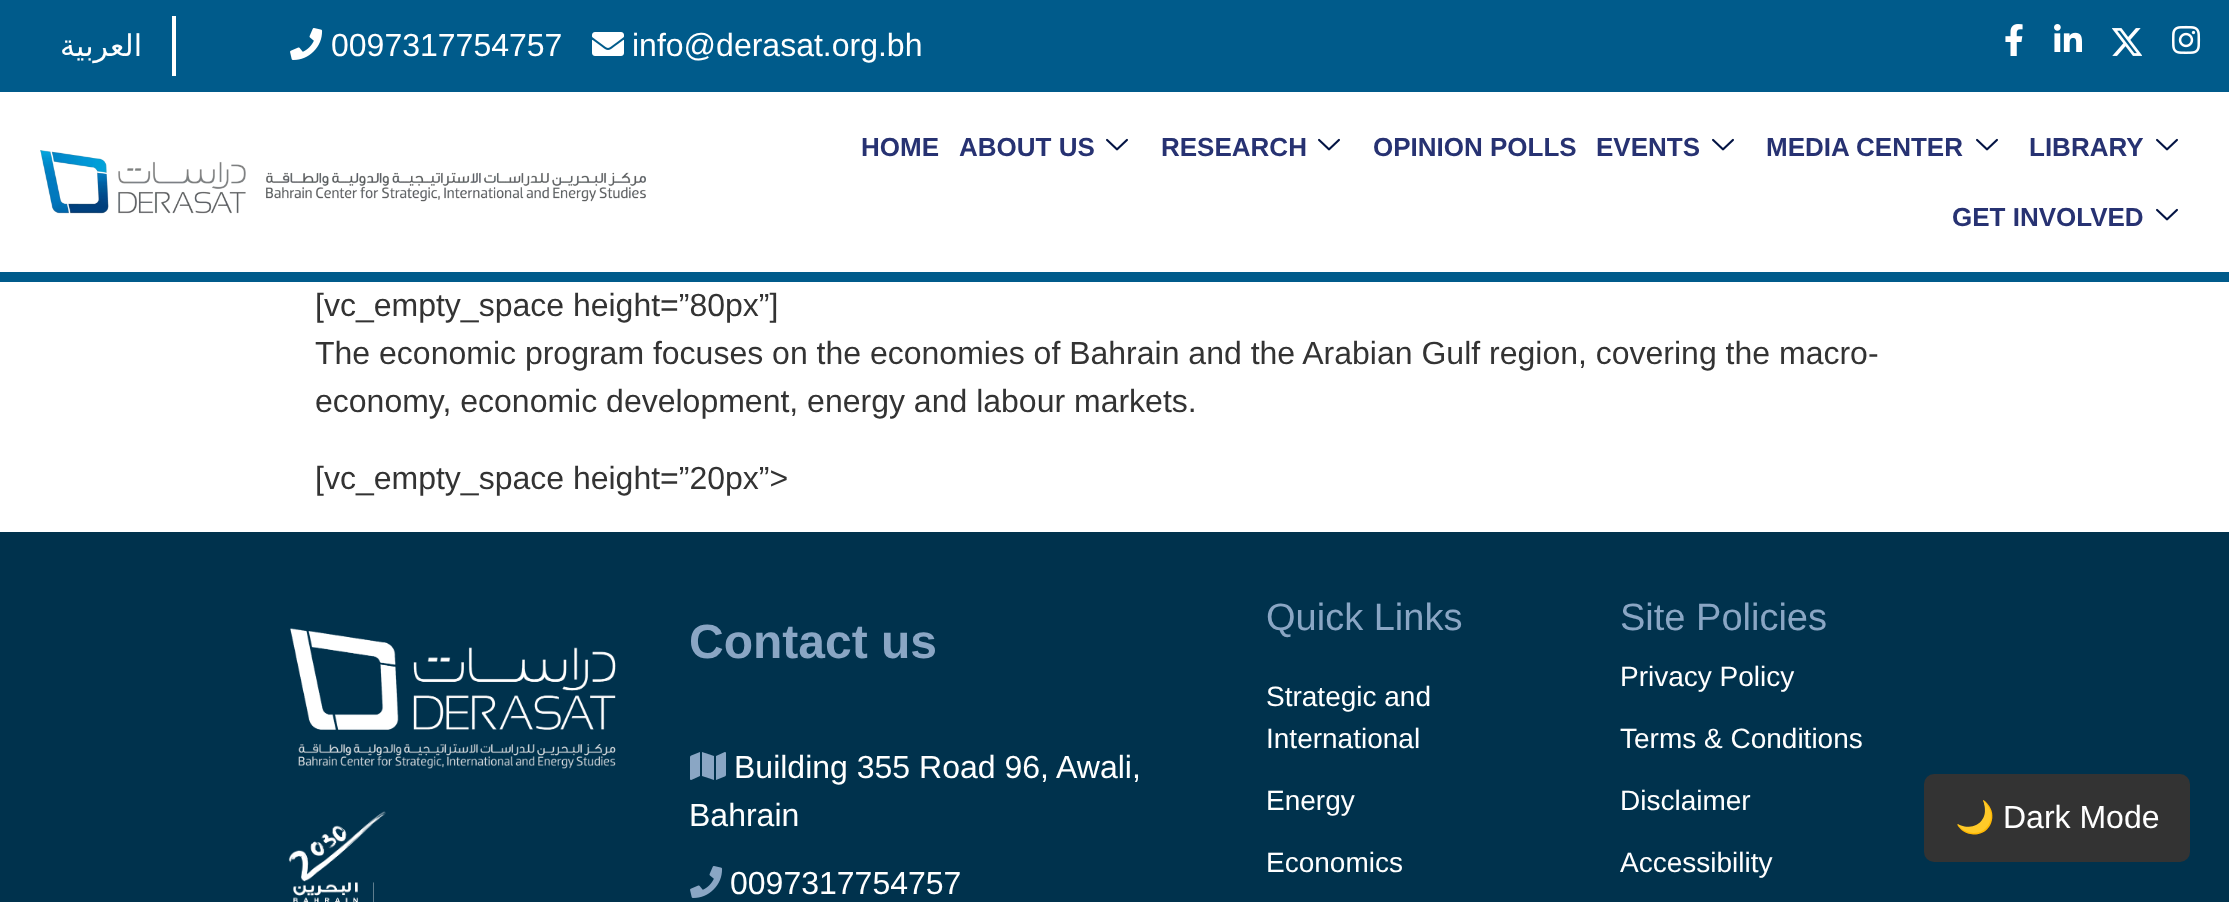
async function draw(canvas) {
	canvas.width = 2229;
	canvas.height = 902;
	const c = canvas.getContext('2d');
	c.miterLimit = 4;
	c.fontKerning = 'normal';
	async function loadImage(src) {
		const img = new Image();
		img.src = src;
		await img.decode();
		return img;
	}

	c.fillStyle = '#fff';
	c.fillRect(0, 0, 2229, 902);
	c.fillStyle = '#005b8b';
	c.fillRect(0, 0, 2229, 92);
	c.fillStyle = '#fff';
	c.fillRect(172, 16, 4, 60);
	c.direction = 'rtl';
	c.font = '30px DejaVu Sans';
	c.fillText('العربية', 142, 56);
	c.drawImage(await loadImage('img1.png'), 290, 28, 33, 32);
	c.direction = 'ltr';
	c.font = '32px Liberation Sans';
	c.fillText('0097317754757', 331, 56);
	c.drawImage(await loadImage('img2.png'), 592, 32, 32, 24);
	c.fillText('info@derasat.org.bh', 632, 56);
	c.drawImage(await loadImage('img3.png'), 2005, 24, 18, 32);
	c.drawImage(await loadImage('img4.png'), 2054, 24, 28, 28);
	c.drawImage(await loadImage('img5.png'), 2112, 28, 30, 28);
	c.drawImage(await loadImage('img6.png'), 2172, 25, 29, 29);
	c.fillStyle = '#005b8b';
	c.fillRect(0, 272, 2229, 10);
	c.drawImage(await loadImage('img7.png'), 40, 150, 606, 64);
	c.font = 'bold 26px Liberation Sans';
	c.fillStyle = '#273272';
	c.fillText('HOME', 861, 156);
	c.fillText('ABOUT US', 959, 156);
	c.drawImage(await loadImage('img8.png'), 1106, 138, 22, 13);
	c.fillText('RESEARCH', 1161, 156);
	c.drawImage(await loadImage('img8.png'), 1318, 138, 22, 13);
	c.fillText('OPINION POLLS', 1373, 156);
	c.fillText('EVENTS', 1596, 156);
	c.drawImage(await loadImage('img8.png'), 1712, 138, 22, 13);
	c.fillText('MEDIA CENTER', 1766, 156);
	c.drawImage(await loadImage('img8.png'), 1976, 138, 22, 13);
	c.fillText('LIBRARY', 2029, 156);
	c.drawImage(await loadImage('img8.png'), 2156, 138, 22, 13);
	c.fillText('GET INVOLVED', 1952, 226);
	c.drawImage(await loadImage('img8.png'), 2156, 208, 22, 13);
	c.font = '32px Liberation Sans';
	c.fillStyle = '#333';
	for (const [text, x, y] of [
		['[vc_empty_space height=”80px”]', 315, 316],
		['The economic program focuses on the economies of Bahrain and the Arabian Gulf region, covering the macro-', 315, 364],
		['economy, economic development, energy and labour markets.', 315, 412],
		['[vc_empty_space height=”20px”>', 315, 489],
	]) {
		c.fillText(text, x, y);
	}
	c.fillStyle = '#00324d';
	c.fillRect(0, 532, 2229, 370);
	c.drawImage(await loadImage('img9.png'), 290, 628, 326, 141);
	c.drawImage(await loadImage('img10.png'), 288, 811, 98, 91);
	c.font = 'bold 48px Liberation Sans';
	c.fillStyle = '#8aa6c4';
	c.fillText('Contact us', 689, 658);
	c.drawImage(await loadImage('img11.png'), 690, 752, 36, 28);
	c.font = '32px Liberation Sans';
	c.fillStyle = '#fff';
	c.fillText('Building 355 Road 96, Awali,', 734, 778);
	c.fillText('Bahrain', 689, 826);
	c.drawImage(await loadImage('img12.png'), 690, 866, 33, 32);
	c.fillText('0097317754757', 730, 894);
	c.font = '38px Liberation Sans';
	c.fillStyle = '#8aa6c4';
	c.fillText('Quick Links', 1266, 630);
	c.font = '28px Liberation Sans';
	c.fillStyle = '#fff';
	for (const [text, x, y] of [
		['Strategic and', 1266, 706],
		['International', 1266, 748],
		['Energy', 1266, 810],
		['Economics', 1266, 872],
	]) {
		c.fillText(text, x, y);
	}
	c.font = '38px Liberation Sans';
	c.fillStyle = '#8aa6c4';
	c.fillText('Site Policies', 1620, 630);
	c.font = '28px Liberation Sans';
	c.fillStyle = '#fff';
	for (const [text, x, y] of [
		['Privacy Policy', 1620, 686],
		['Terms & Conditions', 1620, 748],
		['Disclaimer', 1620, 810],
		['Accessibility', 1620, 872],
	]) {
		c.fillText(text, x, y);
	}
	c.fillStyle = '#333';
	c.beginPath();
	c.roundRect(1924, 774, 266, 88, 10);
	c.fill();
	c.font = '32px Noto Color Emoji';
	c.fillStyle = '#fff';
	c.fillText('🌙', 1955, 828);
	c.font = '32px Liberation Sans';
	c.fillText('Dark Mode', 2003, 828);
}

draw(document.querySelector('canvas'));
